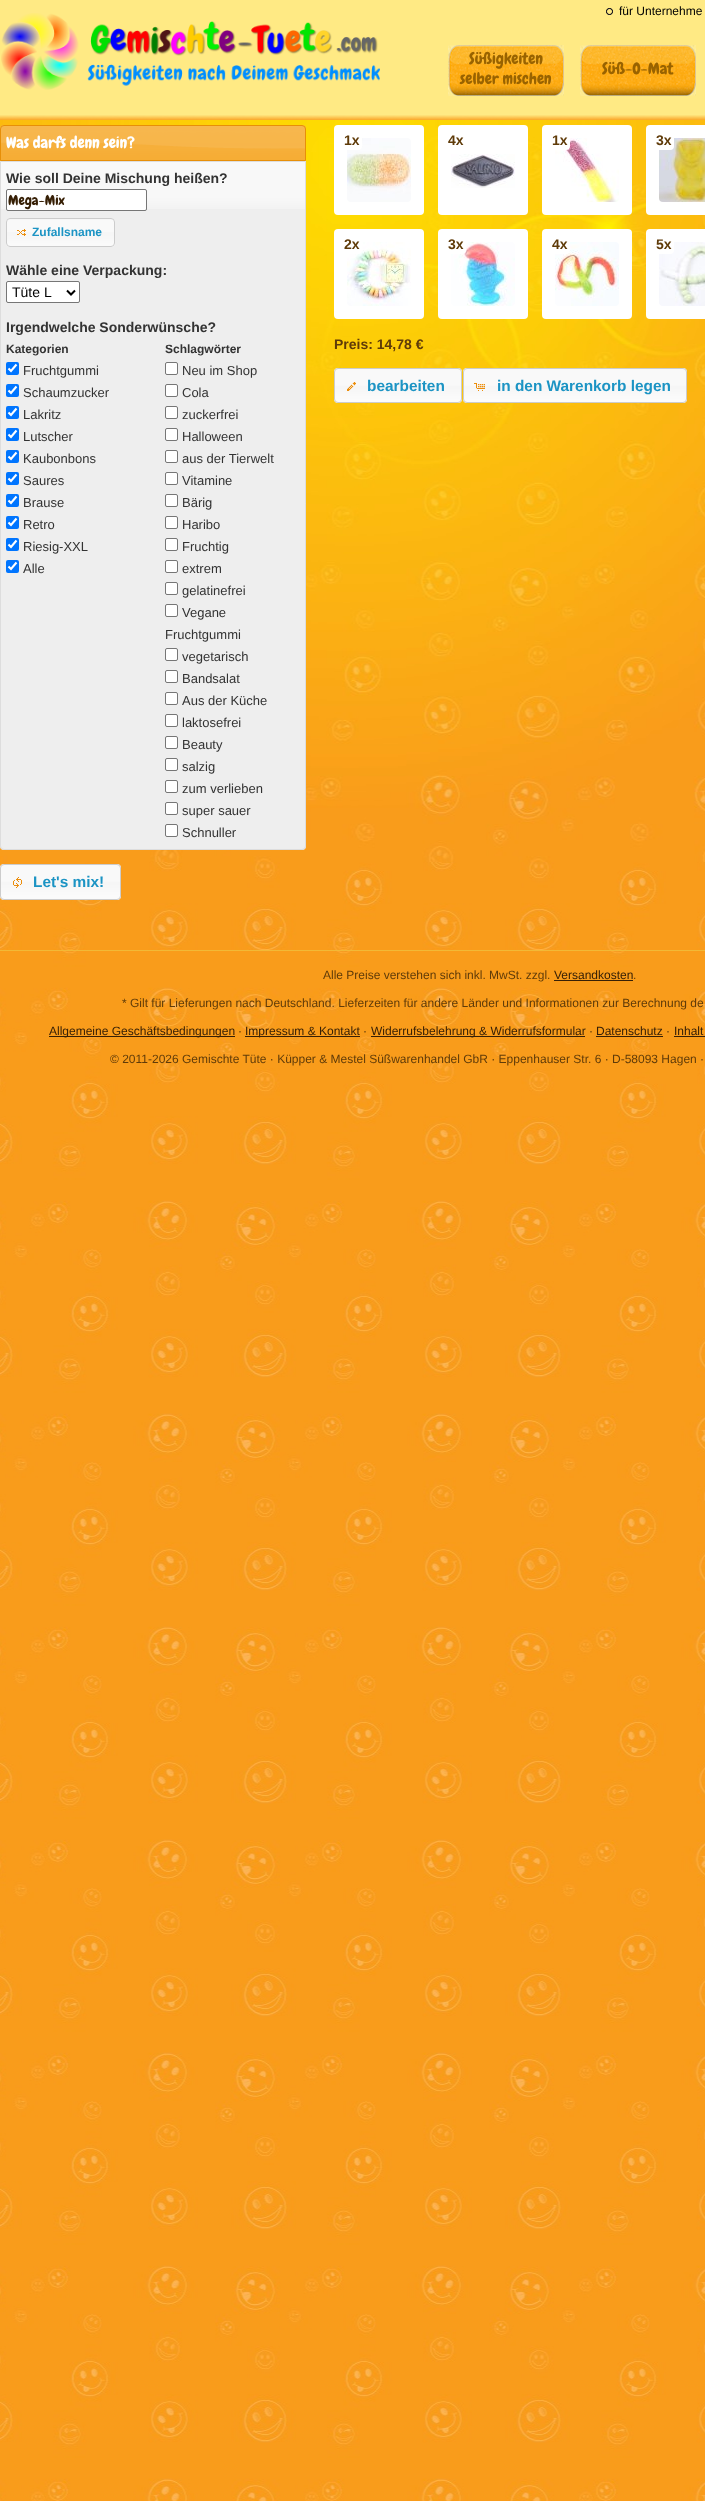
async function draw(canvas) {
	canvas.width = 705;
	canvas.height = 2501;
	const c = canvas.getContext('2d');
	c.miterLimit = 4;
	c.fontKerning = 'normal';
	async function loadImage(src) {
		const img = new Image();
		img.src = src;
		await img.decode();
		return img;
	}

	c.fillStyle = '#fff';
	c.fillRect(0, 0, 705, 2501);
	c.drawImage(await loadImage('img1.png'), 0, 862, 705, 1639);
	c.drawImage(await loadImage('img2.png'), 0, 120, 705, 742);
	c.fillStyle = '#ffea84';
	c.fillRect(0, 0, 705, 115);
	c.drawImage(await loadImage('img3.png'), 0, 115, 705, 5);
	c.drawImage(await loadImage('img4.png'), 606, 8, 7, 7);
	c.font = '12px Liberation Sans';
	c.fillStyle = '#000';
	c.fillText('für Unternehme', 619, 15);
	c.drawImage(await loadImage('img5.png'), 1, 13, 379, 77);
	c.drawImage(await loadImage('img6.png'), 448, 45, 116, 51);
	c.font = '16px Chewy';
	c.fillStyle = '#996300';
	c.fillText('Süßigkeiten', 469, 64);
	c.fillText('selber mischen', 460, 84);
	c.drawImage(await loadImage('img6.png'), 580, 45, 116, 51);
	c.fillText('Süß-O-Mat', 602, 74);
	c.drawImage(await loadImage('img7.png'), 0, 125, 306, 35);
	c.beginPath();
	c.roundRect(0.5, 125.5, 305, 35, [3.5, 3.5, 0, 0]);
	c.strokeStyle = '#e78f08';
	c.stroke();
	c.fillStyle = '#fff';
	c.fillText('Was darfs denn sein?', 6, 148);
	c.fillStyle = '#eee';
	c.beginPath();
	c.roundRect(0, 161, 306, 689, [0, 0, 4, 4]);
	c.fill();
	c.drawImage(await loadImage('img8.png'), 1, 162, 304, 47);
	c.beginPath();
	c.roundRect(0.5, 161.5, 305, 688, [0, 0, 3.5, 3.5]);
	c.strokeStyle = '#ddd';
	c.stroke();
	c.font = 'bold 14px Liberation Sans';
	c.fillStyle = '#333';
	c.fillText('Wie soll Deine Mischung heißen?', 6, 183);
	c.fillStyle = '#fff';
	c.beginPath();
	c.roundRect(6.5, 189.5, 140, 21, 1.5);
	c.fill();
	c.strokeStyle = '#767676';
	c.stroke();
	c.font = '14px Chewy';
	c.fillStyle = '#372006';
	c.fillText('Mega-Mix', 8, 205);
	c.fillStyle = '#f6f6f6';
	c.beginPath();
	c.roundRect(6, 218, 109, 29, 4);
	c.fill();
	c.drawImage(await loadImage('img9.png'), 6, 220, 109, 27);
	c.beginPath();
	c.roundRect(6.5, 218.5, 108, 28, 3.5);
	c.strokeStyle = '#ccc';
	c.stroke();
	c.drawImage(await loadImage('img10.png'), 17, 229, 9, 7);
	c.font = 'bold 12px Liberation Sans';
	c.fillStyle = '#1c94c4';
	c.fillText('Zufallsname', 32, 236);
	c.font = 'bold 14px Liberation Sans';
	c.fillStyle = '#333';
	c.fillText('Wähle eine Verpackung:', 6, 275);
	c.fillStyle = '#fff';
	c.beginPath();
	c.roundRect(6.5, 281.5, 73, 21, 1.5);
	c.fill();
	c.strokeStyle = '#767676';
	c.stroke();
	c.beginPath();
	c.moveTo(67, 290.5);
	c.lineTo(71, 294.5);
	c.lineTo(75, 290.5);
	c.strokeStyle = '#000';
	c.lineWidth = 2;
	c.stroke();
	c.font = '14px Liberation Sans';
	c.fillStyle = '#000';
	c.fillText('Tüte L', 12, 297);
	c.font = 'bold 14px Liberation Sans';
	c.fillStyle = '#333';
	c.fillText('Irgendwelche Sonderwünsche?', 6, 332);
	c.font = 'bold 12px Liberation Sans';
	c.fillText('Kategorien', 6, 353);
	c.fillStyle = '#0075ff';
	c.beginPath();
	c.roundRect(6, 362, 13, 13, 2);
	c.fill();
	c.beginPath();
	c.moveTo(8.5, 368.5);
	c.lineTo(11, 371);
	c.lineTo(16.5, 364.5);
	c.strokeStyle = '#fff';
	c.lineWidth = 2.1;
	c.stroke();
	c.font = '13px Liberation Sans';
	c.fillStyle = '#333';
	c.fillText('Fruchtgummi', 23, 375);
	c.fillStyle = '#0075ff';
	c.beginPath();
	c.roundRect(6, 384, 13, 13, 2);
	c.fill();
	c.beginPath();
	c.moveTo(8.5, 390.5);
	c.lineTo(11, 393);
	c.lineTo(16.5, 386.5);
	c.stroke();
	c.fillStyle = '#333';
	c.fillText('Schaumzucker', 23, 397);
	c.fillStyle = '#0075ff';
	c.beginPath();
	c.roundRect(6, 406, 13, 13, 2);
	c.fill();
	c.beginPath();
	c.moveTo(8.5, 412.5);
	c.lineTo(11, 415);
	c.lineTo(16.5, 408.5);
	c.stroke();
	c.fillStyle = '#333';
	c.fillText('Lakritz', 23, 419);
	c.fillStyle = '#0075ff';
	c.beginPath();
	c.roundRect(6, 428, 13, 13, 2);
	c.fill();
	c.beginPath();
	c.moveTo(8.5, 434.5);
	c.lineTo(11, 437);
	c.lineTo(16.5, 430.5);
	c.stroke();
	c.fillStyle = '#333';
	c.fillText('Lutscher', 23, 441);
	c.fillStyle = '#0075ff';
	c.beginPath();
	c.roundRect(6, 450, 13, 13, 2);
	c.fill();
	c.beginPath();
	c.moveTo(8.5, 456.5);
	c.lineTo(11, 459);
	c.lineTo(16.5, 452.5);
	c.stroke();
	c.fillStyle = '#333';
	c.fillText('Kaubonbons', 23, 463);
	c.fillStyle = '#0075ff';
	c.beginPath();
	c.roundRect(6, 472, 13, 13, 2);
	c.fill();
	c.beginPath();
	c.moveTo(8.5, 478.5);
	c.lineTo(11, 481);
	c.lineTo(16.5, 474.5);
	c.stroke();
	c.fillStyle = '#333';
	c.fillText('Saures', 23, 485);
	c.fillStyle = '#0075ff';
	c.beginPath();
	c.roundRect(6, 494, 13, 13, 2);
	c.fill();
	c.beginPath();
	c.moveTo(8.5, 500.5);
	c.lineTo(11, 503);
	c.lineTo(16.5, 496.5);
	c.stroke();
	c.fillStyle = '#333';
	c.fillText('Brause', 23, 507);
	c.fillStyle = '#0075ff';
	c.beginPath();
	c.roundRect(6, 516, 13, 13, 2);
	c.fill();
	c.beginPath();
	c.moveTo(8.5, 522.5);
	c.lineTo(11, 525);
	c.lineTo(16.5, 518.5);
	c.stroke();
	c.fillStyle = '#333';
	c.fillText('Retro', 23, 529);
	c.fillStyle = '#0075ff';
	c.beginPath();
	c.roundRect(6, 538, 13, 13, 2);
	c.fill();
	c.beginPath();
	c.moveTo(8.5, 544.5);
	c.lineTo(11, 547);
	c.lineTo(16.5, 540.5);
	c.stroke();
	c.fillStyle = '#333';
	c.fillText('Riesig-XXL', 23, 551);
	c.fillStyle = '#0075ff';
	c.beginPath();
	c.roundRect(6, 560, 13, 13, 2);
	c.fill();
	c.beginPath();
	c.moveTo(8.5, 566.5);
	c.lineTo(11, 569);
	c.lineTo(16.5, 562.5);
	c.stroke();
	c.fillStyle = '#333';
	c.fillText('Alle', 23, 573);
	c.font = 'bold 12px Liberation Sans';
	c.fillText('Schlagwörter', 165, 353);
	c.fillStyle = '#fff';
	c.beginPath();
	c.roundRect(165.5, 362.5, 12, 12, 1.5);
	c.fill();
	c.strokeStyle = '#767676';
	c.lineWidth = 1;
	c.stroke();
	c.font = '13px Liberation Sans';
	c.fillStyle = '#333';
	c.fillText('Neu im Shop', 182, 375);
	c.fillStyle = '#fff';
	c.beginPath();
	c.roundRect(165.5, 384.5, 12, 12, 1.5);
	c.fill();
	c.stroke();
	c.fillStyle = '#333';
	c.fillText('Cola', 182, 397);
	c.fillStyle = '#fff';
	c.beginPath();
	c.roundRect(165.5, 406.5, 12, 12, 1.5);
	c.fill();
	c.stroke();
	c.fillStyle = '#333';
	c.fillText('zuckerfrei', 182, 419);
	c.fillStyle = '#fff';
	c.beginPath();
	c.roundRect(165.5, 428.5, 12, 12, 1.5);
	c.fill();
	c.stroke();
	c.fillStyle = '#333';
	c.fillText('Halloween', 182, 441);
	c.fillStyle = '#fff';
	c.beginPath();
	c.roundRect(165.5, 450.5, 12, 12, 1.5);
	c.fill();
	c.stroke();
	c.fillStyle = '#333';
	c.fillText('aus der Tierwelt', 182, 463);
	c.fillStyle = '#fff';
	c.beginPath();
	c.roundRect(165.5, 472.5, 12, 12, 1.5);
	c.fill();
	c.stroke();
	c.fillStyle = '#333';
	c.fillText('Vitamine', 182, 485);
	c.fillStyle = '#fff';
	c.beginPath();
	c.roundRect(165.5, 494.5, 12, 12, 1.5);
	c.fill();
	c.stroke();
	c.fillStyle = '#333';
	c.fillText('Bärig', 182, 507);
	c.fillStyle = '#fff';
	c.beginPath();
	c.roundRect(165.5, 516.5, 12, 12, 1.5);
	c.fill();
	c.stroke();
	c.fillStyle = '#333';
	c.fillText('Haribo', 182, 529);
	c.fillStyle = '#fff';
	c.beginPath();
	c.roundRect(165.5, 538.5, 12, 12, 1.5);
	c.fill();
	c.stroke();
	c.fillStyle = '#333';
	c.fillText('Fruchtig', 182, 551);
	c.fillStyle = '#fff';
	c.beginPath();
	c.roundRect(165.5, 560.5, 12, 12, 1.5);
	c.fill();
	c.stroke();
	c.fillStyle = '#333';
	c.fillText('extrem', 182, 573);
	c.fillStyle = '#fff';
	c.beginPath();
	c.roundRect(165.5, 582.5, 12, 12, 1.5);
	c.fill();
	c.stroke();
	c.fillStyle = '#333';
	c.fillText('gelatinefrei', 182, 595);
	c.fillStyle = '#fff';
	c.beginPath();
	c.roundRect(165.5, 604.5, 12, 12, 1.5);
	c.fill();
	c.stroke();
	c.fillStyle = '#333';
	c.fillText('Vegane', 182, 617);
	c.fillText('Fruchtgummi', 165, 639);
	c.fillStyle = '#fff';
	c.beginPath();
	c.roundRect(165.5, 648.5, 12, 12, 1.5);
	c.fill();
	c.stroke();
	c.fillStyle = '#333';
	c.fillText('vegetarisch', 182, 661);
	c.fillStyle = '#fff';
	c.beginPath();
	c.roundRect(165.5, 670.5, 12, 12, 1.5);
	c.fill();
	c.stroke();
	c.fillStyle = '#333';
	c.fillText('Bandsalat', 182, 683);
	c.fillStyle = '#fff';
	c.beginPath();
	c.roundRect(165.5, 692.5, 12, 12, 1.5);
	c.fill();
	c.stroke();
	c.fillStyle = '#333';
	c.fillText('Aus der Küche', 182, 705);
	c.fillStyle = '#fff';
	c.beginPath();
	c.roundRect(165.5, 714.5, 12, 12, 1.5);
	c.fill();
	c.stroke();
	c.fillStyle = '#333';
	c.fillText('laktosefrei', 182, 727);
	c.fillStyle = '#fff';
	c.beginPath();
	c.roundRect(165.5, 736.5, 12, 12, 1.5);
	c.fill();
	c.stroke();
	c.fillStyle = '#333';
	c.fillText('Beauty', 182, 749);
	c.fillStyle = '#fff';
	c.beginPath();
	c.roundRect(165.5, 758.5, 12, 12, 1.5);
	c.fill();
	c.stroke();
	c.fillStyle = '#333';
	c.fillText('salzig', 182, 771);
	c.fillStyle = '#fff';
	c.beginPath();
	c.roundRect(165.5, 780.5, 12, 12, 1.5);
	c.fill();
	c.stroke();
	c.fillStyle = '#333';
	c.fillText('zum verlieben', 182, 793);
	c.fillStyle = '#fff';
	c.beginPath();
	c.roundRect(165.5, 802.5, 12, 12, 1.5);
	c.fill();
	c.stroke();
	c.fillStyle = '#333';
	c.fillText('super sauer', 182, 815);
	c.fillStyle = '#fff';
	c.beginPath();
	c.roundRect(165.5, 824.5, 12, 12, 1.5);
	c.fill();
	c.stroke();
	c.fillStyle = '#333';
	c.fillText('Schnuller', 182, 837);
	c.drawImage(await loadImage('img11.png'), 0, 864, 121, 36);
	c.beginPath();
	c.roundRect(0.5, 864.5, 120, 35, 3.5);
	c.strokeStyle = '#ccc';
	c.stroke();
	c.drawImage(await loadImage('img12.png'), 13, 877, 9, 11);
	c.font = 'bold 15.4px Liberation Sans';
	c.fillStyle = '#1c94c4';
	c.fillText('Let\'s mix!', 33, 887);
	c.fillStyle = '#fff';
	c.beginPath();
	c.roundRect(334, 125, 90, 90, 4);
	c.fill();
	c.drawImage(await loadImage('img13.png'), 347, 138, 64, 64);
	c.beginPath();
	c.roundRect(342, 130, 20, 20, 4);
	c.fill();
	c.font = 'bold 14px Liberation Sans';
	c.fillStyle = '#5f3b09';
	c.fillText('1x', 344, 145);
	c.fillStyle = '#fff';
	c.beginPath();
	c.roundRect(438, 125, 90, 90, 4);
	c.fill();
	c.fillStyle = '#5f3b09';
	c.fillText('4x', 448, 145);
	c.drawImage(await loadImage('img14.png'), 451, 154, 64, 34);
	c.fillStyle = '#fff';
	c.beginPath();
	c.roundRect(542, 125, 90, 90, 4);
	c.fill();
	c.drawImage(await loadImage('img15.png'), 555, 138, 64, 64);
	c.beginPath();
	c.roundRect(550, 130, 20, 20, 4);
	c.fill();
	c.fillStyle = '#5f3b09';
	c.fillText('1x', 552, 145);
	c.fillStyle = '#fff';
	c.beginPath();
	c.roundRect(646, 125, 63, 90, 4);
	c.fill();
	c.drawImage(await loadImage('img16.png'), 659, 138, 46, 64);
	c.beginPath();
	c.roundRect(654, 130, 20, 20, 4);
	c.fill();
	c.fillStyle = '#5f3b09';
	c.fillText('3x', 656, 145);
	c.fillStyle = '#fff';
	c.beginPath();
	c.roundRect(334, 229, 90, 90, 4);
	c.fill();
	c.drawImage(await loadImage('img17.png'), 347, 242, 64, 64);
	c.beginPath();
	c.roundRect(342, 234, 20, 20, 4);
	c.fill();
	c.fillStyle = '#5f3b09';
	c.fillText('2x', 344, 249);
	c.fillStyle = '#fff';
	c.beginPath();
	c.roundRect(438, 229, 90, 90, 4);
	c.fill();
	c.drawImage(await loadImage('img18.png'), 451, 242, 64, 64);
	c.beginPath();
	c.roundRect(446, 234, 20, 20, 4);
	c.fill();
	c.fillStyle = '#5f3b09';
	c.fillText('3x', 448, 249);
	c.fillStyle = '#fff';
	c.beginPath();
	c.roundRect(542, 229, 90, 90, 4);
	c.fill();
	c.drawImage(await loadImage('img19.png'), 555, 242, 64, 64);
	c.beginPath();
	c.roundRect(550, 234, 20, 20, 4);
	c.fill();
	c.fillStyle = '#5f3b09';
	c.fillText('4x', 552, 249);
	c.fillStyle = '#fff';
	c.beginPath();
	c.roundRect(646, 229, 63, 90, 4);
	c.fill();
	c.drawImage(await loadImage('img20.png'), 659, 242, 46, 64);
	c.beginPath();
	c.roundRect(654, 234, 20, 20, 4);
	c.fill();
	c.fillStyle = '#5f3b09';
	c.fillText('5x', 656, 249);
	c.fillText('Preis: 14,78 €', 334, 349);
	c.drawImage(await loadImage('img21.png'), 334, 368, 128, 35);
	c.beginPath();
	c.roundRect(334.5, 368.5, 127, 34, 3.5);
	c.stroke();
	c.drawImage(await loadImage('img22.png'), 347, 382, 9, 9);
	c.font = 'bold 15.4px Liberation Sans';
	c.fillStyle = '#1c94c4';
	c.fillText('bearbeiten', 367, 391);
	c.drawImage(await loadImage('img23.png'), 463, 368, 224, 35);
	c.beginPath();
	c.roundRect(463.5, 368.5, 223, 34, 3.5);
	c.stroke();
	c.drawImage(await loadImage('img24.png'), 474, 383, 11, 8);
	c.fillText('in den Warenkorb legen', 497, 391);
	c.fillStyle = '#f2b936';
	c.fillRect(0, 950, 705, 1);
	c.font = '12px Liberation Sans';
	c.fillStyle = '#5f3b09';
	c.fillText('Alle Preise verstehen sich inkl. MwSt. zzgl.', 323, 979);
	c.fillStyle = '#372006';
	c.fillText('Versandkosten', 554, 979);
	c.fillRect(554, 980, 79, 1);
	c.fillStyle = '#5f3b09';
	c.fillText('.', 633, 979);
	c.fillText('* Gilt für Lieferungen nach Deutschland. Lieferzeiten für andere Länder und Informationen zur Berechnung de', 122, 1007);
	c.fillStyle = '#372006';
	c.fillRect(49, 1036, 186, 1);
	c.fillText('Allgemeine Geschäftsbedingungen', 49, 1035);
	c.fillStyle = '#5f3b09';
	c.fillText('·', 238, 1035);
	c.fillStyle = '#372006';
	c.fillRect(245, 1036, 115, 1);
	c.fillText('Impressum & Kontakt', 245, 1035);
	c.fillStyle = '#5f3b09';
	c.fillText('·', 363, 1035);
	c.fillStyle = '#372006';
	c.fillRect(371, 1036, 214, 1);
	c.fillText('Widerrufsbelehrung & Widerrufsformular', 371, 1035);
	c.fillStyle = '#5f3b09';
	c.fillText('·', 589, 1035);
	c.fillStyle = '#372006';
	c.fillText('Datenschutz', 596, 1035);
	c.fillRect(596, 1036, 67, 1);
	c.fillStyle = '#5f3b09';
	c.fillText('·', 666, 1035);
	c.fillStyle = '#372006';
	c.fillText('Inhalt', 674, 1035);
	c.fillRect(674, 1036, 31, 1);
	c.fillStyle = '#5f3b09';
	c.fillText('© 2011-2026 Gemischte Tüte · Küpper & Mestel Süßwarenhandel GbR · Eppenhauser Str. 6 · D-58093 Hagen ·', 110, 1063);
}

draw(document.querySelector('canvas'));
